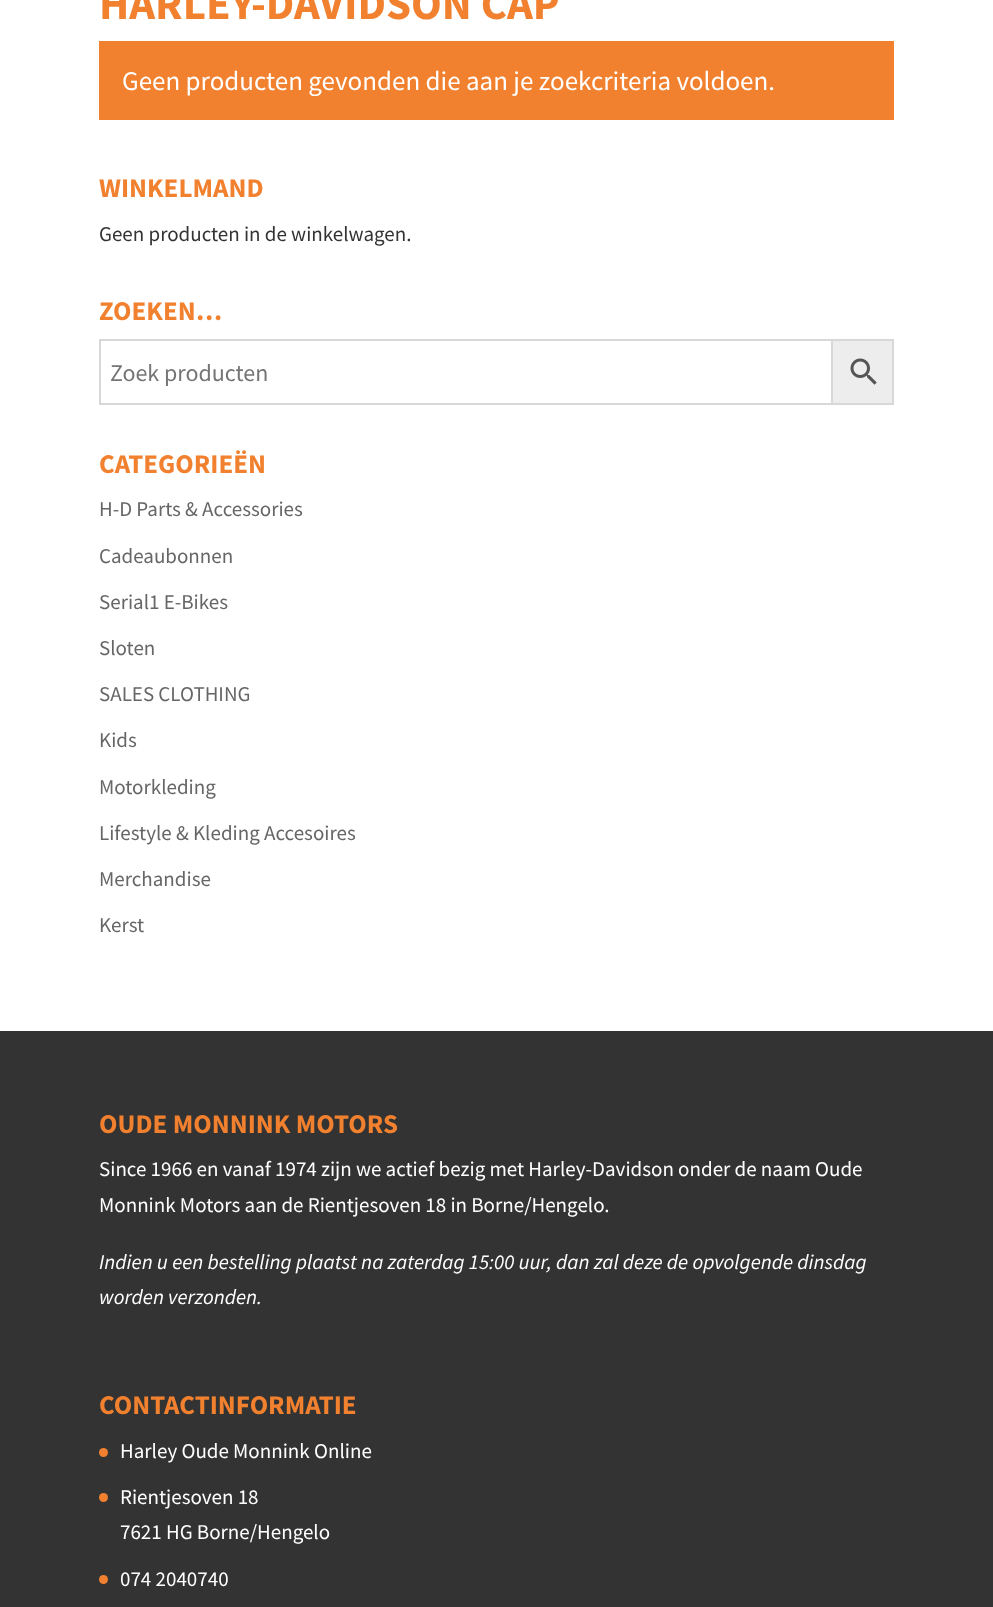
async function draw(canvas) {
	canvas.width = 993;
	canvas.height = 1607;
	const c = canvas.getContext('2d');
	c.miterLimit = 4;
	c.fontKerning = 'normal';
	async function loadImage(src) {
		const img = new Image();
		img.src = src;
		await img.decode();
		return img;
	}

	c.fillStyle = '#fff';
	c.fillRect(0, 0, 993, 1607);
	c.font = 'bold 45px Source Sans Pro';
	c.fillStyle = '#f2812f';
	c.fillText('HARLEY-DAVIDSON CAP', 99, 19);
	c.fillRect(99, 41, 795, 79);
	c.font = '27px Source Sans Pro';
	c.fillStyle = '#fff';
	c.fillText('Geen producten gevonden die aan je zoekcriteria voldoen.', 122, 90);
	c.font = 'bold 27px Source Sans Pro';
	c.fillStyle = '#f2812f';
	c.fillText('WINKELMAND', 99, 197);
	c.font = '21px Source Sans Pro';
	c.fillStyle = '#333';
	c.fillText('Geen producten in de winkelwagen.', 99, 241);
	c.font = 'bold 27px Source Sans Pro';
	c.fillStyle = '#f2812f';
	c.fillText('ZOEKEN…', 99, 320);
	c.fillStyle = '#ededed';
	c.beginPath();
	c.rect(832, 340, 61, 64);
	c.fill();
	c.strokeStyle = '#d8d8d8';
	c.lineWidth = 2;
	c.stroke();
	c.strokeRect(100, 340, 732, 64);
	c.font = '24px Source Sans Pro';
	c.fillStyle = '#757575';
	c.fillText('Zoek producten', 110, 381);
	c.drawImage(await loadImage('img1.png'), 850, 358, 27, 27);
	c.font = 'bold 27px Source Sans Pro';
	c.fillStyle = '#f2812f';
	c.fillText('CATEGORIEËN', 99, 473);
	c.font = '21px Source Sans Pro';
	c.fillStyle = '#666';
	for (const [text, x, y] of [
		['H-D Parts & Accessories', 99, 516],
		['Cadeaubonnen', 99, 563],
		['Serial1 E-Bikes', 99, 609],
		['Sloten', 99, 655],
		['SALES CLOTHING', 99, 701],
		['Kids', 99, 747],
		['Motorkleding', 99, 794],
		['Lifestyle & Kleding Accesoires', 99, 840],
		['Merchandise', 99, 886],
		['Kerst', 99, 932],
	]) {
		c.fillText(text, x, y);
	}
	c.fillStyle = '#333';
	c.fillRect(0, 1031, 993, 576);
	c.font = 'bold 27px Source Sans Pro';
	c.fillStyle = '#f2812f';
	c.fillText('OUDE MONNINK MOTORS', 99, 1133);
	c.font = '21px Source Sans Pro';
	c.fillStyle = '#fff';
	c.fillText('Since 1966 en vanaf 1974 zijn we actief bezig met Harley-Davidson onder de naam Oude', 99, 1176);
	c.fillText('Monnink Motors aan de Rientjesoven 18 in Borne/Hengelo.', 99, 1212);
	c.font = 'italic 21px Source Sans Pro';
	c.fillText('Indien u een bestelling plaatst na zaterdag 15:00 uur, dan zal deze de opvolgende dinsdag', 99, 1269);
	c.fillText('worden verzonden.', 99, 1304);
	c.font = 'bold 27px Source Sans Pro';
	c.fillStyle = '#f2812f';
	c.fillText('CONTACTINFORMATIE', 99, 1414);
	c.beginPath();
	c.arc(103.5, 1452.5, 4.5, 0, 2 * Math.PI);
	c.fill();
	c.font = '21px Source Sans Pro';
	c.fillStyle = '#fff';
	c.fillText('Harley Oude Monnink Online', 120, 1458);
	c.fillStyle = '#f2812f';
	c.beginPath();
	c.arc(103.5, 1497.5, 4.5, 0, 2 * Math.PI);
	c.fill();
	c.fillStyle = '#fff';
	c.fillText('Rientjesoven 18', 120, 1504);
	c.fillText('7621 HG Borne/Hengelo', 120, 1539);
	c.fillStyle = '#f2812f';
	c.beginPath();
	c.arc(103.5, 1579.5, 4.5, 0, 2 * Math.PI);
	c.fill();
	c.fillStyle = '#fff';
	c.fillText('074 2040740', 120, 1586);
}

draw(document.querySelector('canvas'));
